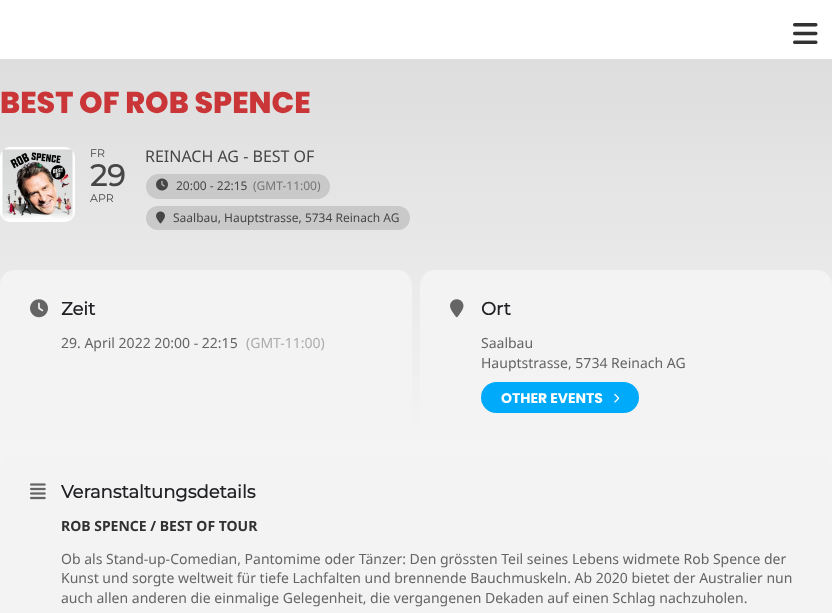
async function draw(canvas) {
	canvas.width = 832;
	canvas.height = 613;
	const c = canvas.getContext('2d');
	c.miterLimit = 4;
	c.fontKerning = 'normal';
	async function loadImage(src) {
		const img = new Image();
		img.src = src;
		await img.decode();
		return img;
	}
	let gradient;

	c.fillStyle = '#fff';
	c.fillRect(0, 0, 832, 613);
	c.drawImage(await loadImage('img1.png'), 793, 23, 25, 21);
	gradient = c.createLinearGradient(416, 0, 416, 613);
	gradient.addColorStop(0, '#dadada');
	gradient.addColorStop(1, '#fdfdfd');
	c.fillStyle = gradient;
	c.fillRect(0, 59, 832, 409);
	c.font = '800 30px Poppins';
	c.fillStyle = '#ca3638';
	c.fillText('BEST OF ROB SPENCE', 0, 113);
	c.drawImage(await loadImage('img2.png'), 0, 147, 75, 75);
	c.font = '100 11px Montserrat';
	c.fillStyle = '#464646';
	c.fillText('FR', 90, 157);
	c.font = 'bold 30px Montserrat';
	c.fillText('29', 90, 186);
	c.font = '100 11px Montserrat';
	c.fillText('APR', 90, 202);
	c.font = '16px Noto Sans';
	c.fillText('REINACH AG - BEST OF', 145, 162);
	c.fillStyle = '#c9c9c9';
	c.beginPath();
	c.roundRect(146, 174, 184, 25, 12.5);
	c.fill();
	c.drawImage(await loadImage('img3.png'), 156, 178, 12, 13);
	c.font = '12px Noto Sans';
	c.fillStyle = '#464646';
	c.fillText('20:00 - 22:15', 176, 190);
	c.fillStyle = '#757577';
	c.fillText('(GMT-11:00)', 253, 190);
	c.fillStyle = '#c9c9c9';
	c.beginPath();
	c.roundRect(146, 206, 264, 24, 12);
	c.fill();
	c.drawImage(await loadImage('img4.png'), 156, 211, 9, 13);
	c.fillStyle = '#464646';
	c.fillText('Saalbau, Hauptstrasse, 5734 Reinach AG', 173, 222);
	c.fillStyle = '#f3f3f3';
	c.beginPath();
	c.roundRect(0, 270, 412, 173, 15);
	c.fill();
	c.drawImage(await loadImage('img5.png'), 30, 299, 18, 19);
	c.font = 'bold 18px Montserrat';
	c.fillStyle = '#202124';
	c.fillText('Zeit', 61, 315);
	c.font = '14px Noto Sans';
	c.fillStyle = '#656565';
	c.fillText('29. April 2022 20:00 - 22:15', 61, 348);
	c.fillStyle = '#acacac';
	c.fillText('(GMT-11:00)', 246, 348);
	c.fillStyle = '#f3f3f3';
	c.beginPath();
	c.roundRect(420, 270, 412, 173, 15);
	c.fill();
	c.drawImage(await loadImage('img6.png'), 450, 299, 14, 19);
	c.font = 'bold 18px Montserrat';
	c.fillStyle = '#202124';
	c.fillText('Ort', 481, 315);
	c.font = '14px Noto Sans';
	c.fillStyle = '#656565';
	c.fillText('Saalbau', 481, 348);
	c.fillText('Hauptstrasse, 5734 Reinach AG', 481, 368);
	c.fillStyle = '#00aafb';
	c.beginPath();
	c.roundRect(481, 382, 158, 31, 15.5);
	c.fill();
	c.font = 'bold 14px Poppins';
	c.fillStyle = '#fff';
	c.fillText('OTHER EVENTS', 501, 403);
	c.drawImage(await loadImage('img7.png'), 614, 393, 6, 10);
	c.fillStyle = '#f3f3f3';
	c.beginPath();
	c.roundRect(0, 453, 832, 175, 15);
	c.fill();
	c.drawImage(await loadImage('img8.png'), 30, 483, 16, 17);
	c.font = 'bold 18px Montserrat';
	c.fillStyle = '#202124';
	c.fillText('Veranstaltungsdetails', 61, 498);
	c.font = 'bold 14px Noto Sans';
	c.fillStyle = '#323232';
	c.fillText('ROB SPENCE / BEST OF TOUR', 61, 531);
	c.font = '14px Noto Sans';
	c.fillStyle = '#656565';
	for (const [text, x, y] of [
		['Ob als Stand-up-Comedian, Pantomime oder Tänzer: Den grössten Teil seines Lebens widmete Rob Spence der', 61, 564],
		['Kunst und sorgte weltweit für tiefe Lachfalten und brennende Bauchmuskeln. Ab 2020 bietet der Australier nun', 61, 583],
		['auch allen anderen die einmalige Gelegenheit, die vergangenen Dekaden auf einen Schlag nachzuholen.', 61, 603],
	]) {
		c.fillText(text, x, y);
	}
}

draw(document.querySelector('canvas'));
